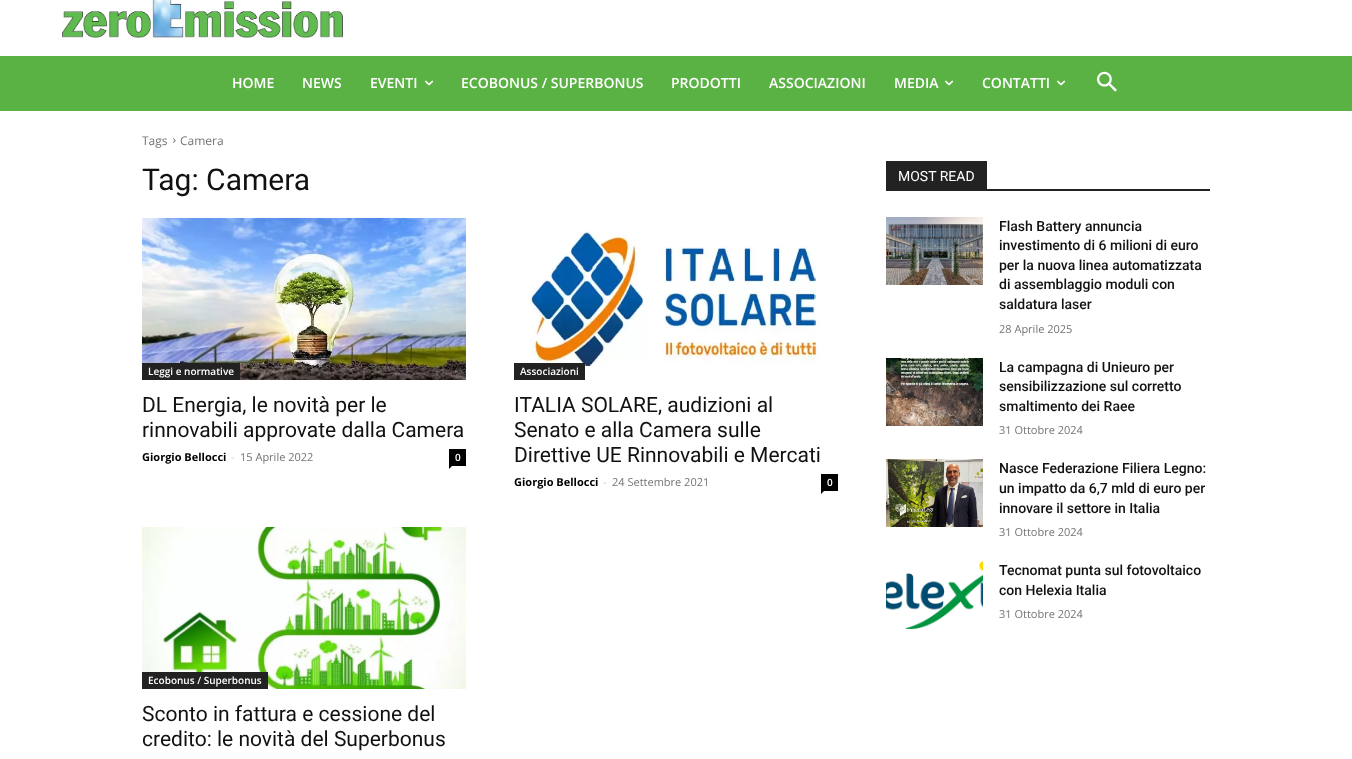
async function draw(canvas) {
	canvas.width = 1352;
	canvas.height = 759;
	const c = canvas.getContext('2d');
	c.miterLimit = 4;
	c.fontKerning = 'normal';
	async function loadImage(src) {
		const img = new Image();
		img.src = src;
		await img.decode();
		return img;
	}

	c.fillStyle = '#fff';
	c.fillRect(0, 0, 1352, 759);
	c.fillStyle = '#5bb244';
	c.fillRect(0, 56, 1352, 55);
	c.drawImage(await loadImage('img1.png'), 62, 0, 281, 38);
	c.font = '600 14px Open Sans';
	c.fillStyle = '#fff';
	for (const [text, x, y] of [
		['HOME', 232, 88],
		['NEWS', 302, 88],
		['EVENTI', 370, 88],
	]) {
		c.fillText(text, x, y);
	}
	c.drawImage(await loadImage('img2.png'), 425, 80, 9, 6);
	for (const [text, x, y] of [
		['ECOBONUS / SUPERBONUS', 461, 88],
		['PRODOTTI', 671, 88],
		['ASSOCIAZIONI', 769, 88],
		['MEDIA', 894, 88],
	]) {
		c.fillText(text, x, y);
	}
	c.drawImage(await loadImage('img2.png'), 945, 80, 9, 6);
	c.fillText('CONTATTI', 982, 88);
	c.drawImage(await loadImage('img2.png'), 1057, 80, 9, 6);
	c.drawImage(await loadImage('img3.png'), 1097, 71, 20, 21);
	c.font = '12px Open Sans';
	c.fillStyle = '#747474';
	c.fillText('Tags', 142, 145);
	c.drawImage(await loadImage('img4.png'), 173, 138, 3, 5);
	c.fillText('Camera', 180, 145);
	c.font = '30px Roboto';
	c.fillStyle = '#111';
	c.fillText('Tag: Camera', 142, 190);
	c.drawImage(await loadImage('img5.png'), 142, 218, 324, 162);
	c.fillStyle = '#222';
	c.fillRect(142, 363, 98, 17);
	c.font = '600 10px Open Sans';
	c.fillStyle = '#fff';
	c.fillText('Leggi e normative', 148, 375);
	c.font = '21px Roboto';
	c.fillStyle = '#111';
	c.fillText('DL Energia, le novità per le', 142, 412);
	c.fillText('rinnovabili approvate dalla Camera', 142, 437);
	c.font = 'bold 11px Open Sans';
	c.fillStyle = '#000';
	c.fillText('Giorgio Bellocci', 142, 461);
	c.font = '11px Open Sans';
	c.fillStyle = '#ccc';
	c.fillText('-', 231, 461);
	c.fillStyle = '#747474';
	c.fillText('15 Aprile 2022', 240, 461);
	c.fillStyle = '#000';
	c.fillRect(449, 449, 17, 17);
	c.font = '600 10px Open Sans';
	c.fillStyle = '#fff';
	c.fillText('0', 455, 461);
	c.fillStyle = '#000';
	c.beginPath();
	c.moveTo(449, 466);
	c.lineTo(452, 466);
	c.lineTo(449, 469);
	c.closePath();
	c.fill();
	c.drawImage(await loadImage('img6.png'), 527, 229, 293, 138);
	c.fillStyle = '#222';
	c.fillRect(514, 363, 71, 17);
	c.fillStyle = '#fff';
	c.fillText('Associazioni', 520, 375);
	c.font = '21px Roboto';
	c.fillStyle = '#111';
	for (const [text, x, y] of [
		['ITALIA SOLARE, audizioni al', 514, 412],
		['Senato e alla Camera sulle', 514, 437],
		['Direttive UE Rinnovabili e Mercati', 514, 462],
	]) {
		c.fillText(text, x, y);
	}
	c.font = 'bold 11px Open Sans';
	c.fillStyle = '#000';
	c.fillText('Giorgio Bellocci', 514, 486);
	c.font = '11px Open Sans';
	c.fillStyle = '#ccc';
	c.fillText('-', 603, 486);
	c.fillStyle = '#747474';
	c.fillText('24 Settembre 2021', 612, 486);
	c.fillStyle = '#000';
	c.fillRect(821, 474, 17, 17);
	c.font = '600 10px Open Sans';
	c.fillStyle = '#fff';
	c.fillText('0', 827, 486);
	c.fillStyle = '#000';
	c.beginPath();
	c.moveTo(821, 491);
	c.lineTo(824, 491);
	c.lineTo(821, 494);
	c.closePath();
	c.fill();
	c.drawImage(await loadImage('img7.png'), 142, 527, 324, 162);
	c.fillStyle = '#222';
	c.fillRect(142, 672, 126, 17);
	c.fillStyle = '#fff';
	c.fillText('Ecobonus / Superbonus', 148, 684);
	c.font = '21px Roboto';
	c.fillStyle = '#111';
	c.fillText('Sconto in fattura e cessione del', 142, 721);
	c.fillText('credito: le novità del Superbonus', 142, 746);
	c.fillStyle = '#222';
	c.fillRect(886, 189, 324, 2);
	c.fillRect(886, 161, 101, 28);
	c.font = '14px Roboto';
	c.fillStyle = '#fff';
	c.fillText('MOST READ', 898, 181);
	c.drawImage(await loadImage('img8.png'), 886, 217, 97, 68);
	c.font = '500 14px Roboto';
	c.fillStyle = '#111';
	for (const [text, x, y] of [
		['Flash Battery annuncia', 999, 231],
		['investimento di 6 milioni di euro', 999, 250],
		['per la nuova linea automatizzata', 999, 270],
		['di assemblaggio moduli con', 999, 289],
		['saldatura laser', 999, 309],
	]) {
		c.fillText(text, x, y);
	}
	c.font = '11px Open Sans';
	c.fillStyle = '#747474';
	c.fillText('28 Aprile 2025', 999, 333);
	c.drawImage(await loadImage('img9.png'), 886, 358, 97, 68);
	c.font = '500 14px Roboto';
	c.fillStyle = '#111';
	for (const [text, x, y] of [
		['La campagna di Unieuro per', 999, 372],
		['sensibilizzazione sul corretto', 999, 391],
		['smaltimento dei Raee', 999, 411],
	]) {
		c.fillText(text, x, y);
	}
	c.font = '11px Open Sans';
	c.fillStyle = '#747474';
	c.fillText('31 Ottobre 2024', 999, 434);
	c.drawImage(await loadImage('img10.png'), 886, 459, 97, 68);
	c.font = '500 14px Roboto';
	c.fillStyle = '#111';
	for (const [text, x, y] of [
		['Nasce Federazione Filiera Legno:', 999, 473],
		['un impatto da 6,7 mld di euro per', 999, 493],
		['innovare il settore in Italia', 999, 513],
	]) {
		c.fillText(text, x, y);
	}
	c.font = '11px Open Sans';
	c.fillStyle = '#747474';
	c.fillText('31 Ottobre 2024', 999, 536);
	c.drawImage(await loadImage('img11.png'), 886, 561, 97, 68);
	c.font = '500 14px Roboto';
	c.fillStyle = '#111';
	c.fillText('Tecnomat punta sul fotovoltaico', 999, 575);
	c.fillText('con Helexia Italia', 999, 595);
	c.font = '11px Open Sans';
	c.fillStyle = '#747474';
	c.fillText('31 Ottobre 2024', 999, 618);
}

draw(document.querySelector('canvas'));
